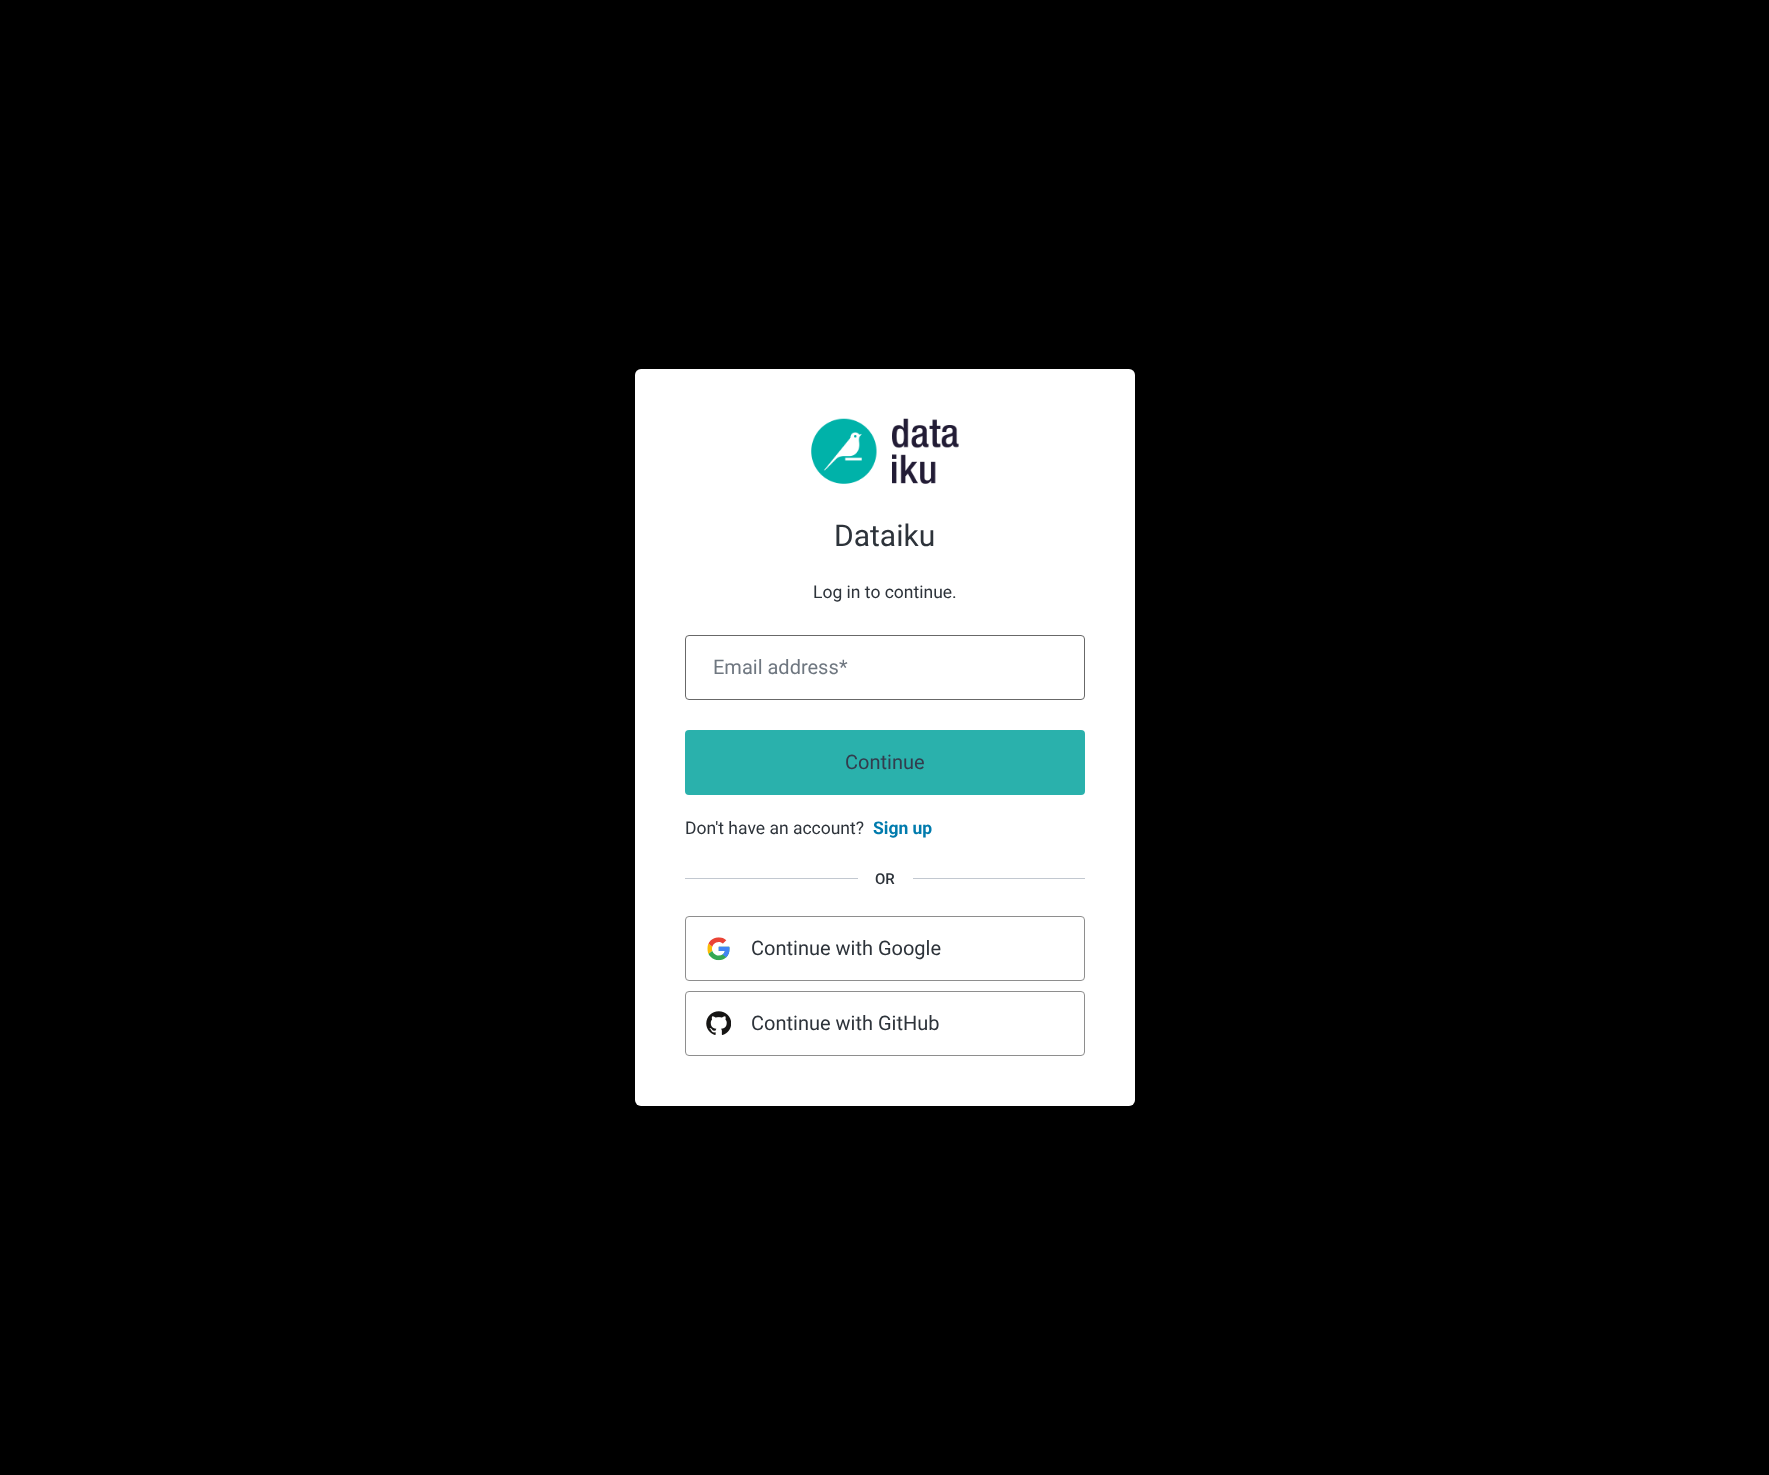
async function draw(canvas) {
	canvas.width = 1769;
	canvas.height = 1475;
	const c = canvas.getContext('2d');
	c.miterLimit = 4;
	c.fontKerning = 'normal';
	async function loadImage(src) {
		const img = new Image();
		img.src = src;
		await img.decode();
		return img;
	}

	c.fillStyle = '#000';
	c.fillRect(0, 0, 1769, 1475);
	c.fillStyle = '#fff';
	c.beginPath();
	c.roundRect(635, 369, 500, 737, 6);
	c.fill();
	c.drawImage(await loadImage('img1.png'), 811, 418, 148, 66);
	c.font = '30px Roboto';
	c.fillStyle = '#2d333a';
	c.fillText('Dataiku', 834, 546);
	c.font = '17.5px Roboto';
	c.fillText('Log in to continue.', 813, 598);
	c.beginPath();
	c.roundRect(685.5, 635.5, 399, 64, 3.5);
	c.strokeStyle = '#686868';
	c.stroke();
	c.font = '20px Roboto';
	c.fillStyle = '#6f7780';
	c.fillText('Email address', 713, 674);
	c.fillText('*', 839, 674);
	c.fillStyle = '#2ab1ac';
	c.beginPath();
	c.roundRect(685, 730, 400, 65, 4);
	c.fill();
	c.fillStyle = '#333c4d';
	c.fillText('Continue', 845, 769);
	c.font = '17.5px Roboto';
	c.fillStyle = '#2d333a';
	c.fillText('Don\'t have an account?', 685, 834);
	c.font = 'bold 17.5px Roboto';
	c.fillStyle = '#007bad';
	c.fillText('Sign up', 873, 834);
	c.fillStyle = '#c2c8d0';
	c.fillRect(685, 878, 173, 1);
	c.font = '500 15px Roboto';
	c.fillStyle = '#2d333a';
	c.fillText('OR', 875, 884);
	c.fillStyle = '#c2c8d0';
	c.fillRect(913, 878, 172, 1);
	c.beginPath();
	c.roundRect(685.5, 916.5, 399, 64, 3.5);
	c.strokeStyle = '#8e8e8e';
	c.stroke();
	c.drawImage(await loadImage('img2.png'), 707, 937, 23, 24);
	c.font = '20px Roboto';
	c.fillStyle = '#2d333a';
	c.fillText('Continue with Google', 751, 955);
	c.beginPath();
	c.roundRect(685.5, 991.5, 399, 64, 3.5);
	c.stroke();
	c.drawImage(await loadImage('img3.png'), 706, 1011, 25, 24);
	c.fillText('Continue with GitHub', 751, 1030);
}

draw(document.querySelector('canvas'));
